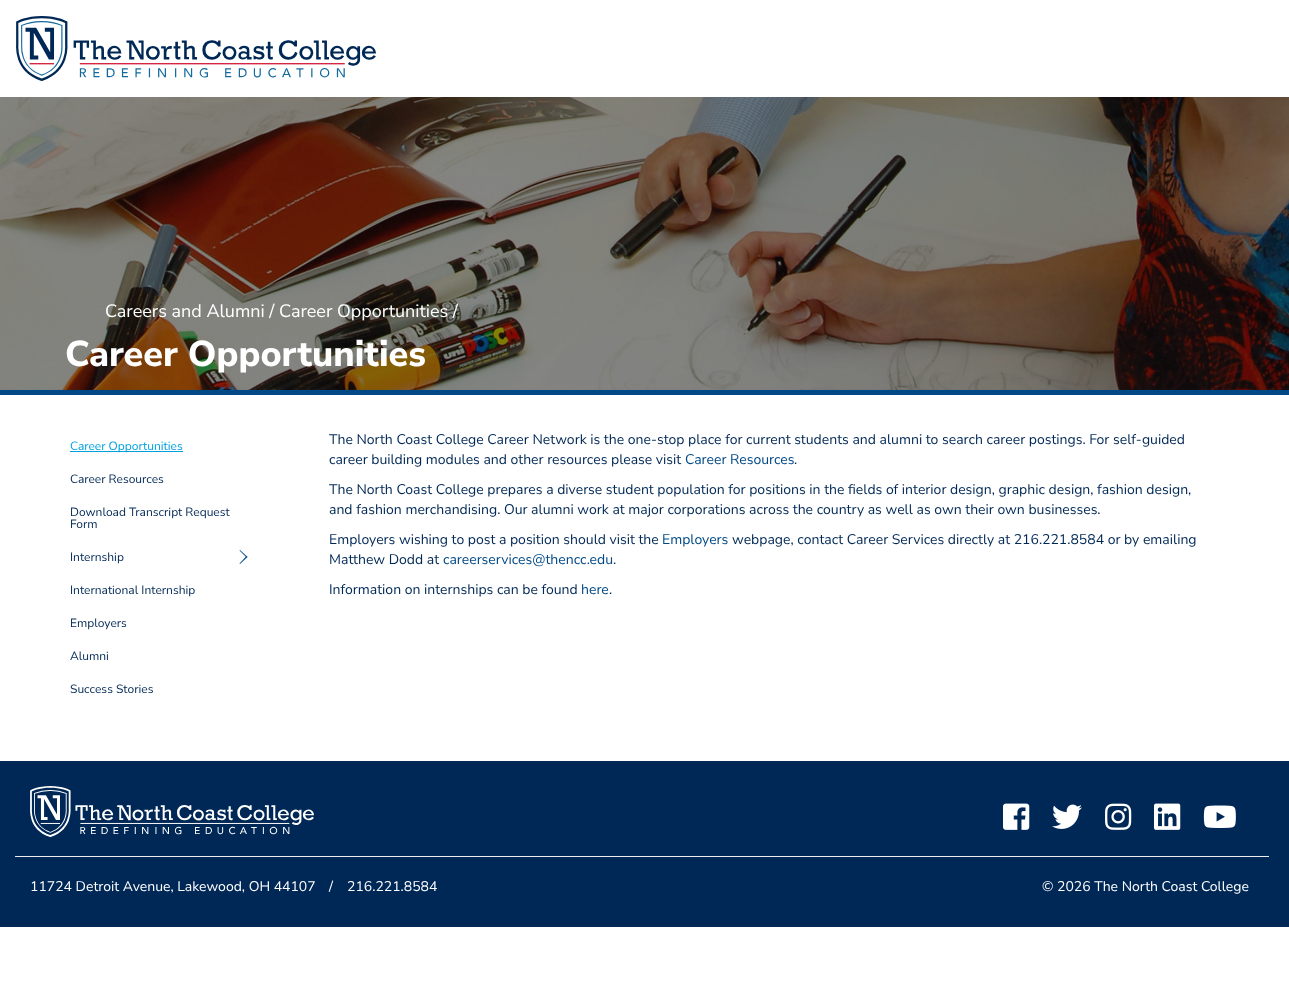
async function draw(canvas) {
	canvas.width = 1289;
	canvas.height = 991;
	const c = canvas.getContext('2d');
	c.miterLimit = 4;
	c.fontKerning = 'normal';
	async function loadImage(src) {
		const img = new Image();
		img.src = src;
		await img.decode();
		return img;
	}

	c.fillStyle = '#fff';
	c.fillRect(0, 0, 1289, 991);
	c.drawImage(await loadImage('img1.png'), 16, 16, 360, 65);
	c.fillStyle = '#004987';
	c.fillRect(0, 389, 1289, 6);
	c.drawImage(await loadImage('img2.png'), 0, 97, 1289, 293);
	c.font = '18px Nunito Sans';
	c.fillStyle = '#fff';
	c.fillText('Careers and Alumni / Career Opportunities /', 105, 317);
	c.font = '800 36px Nunito Sans';
	c.fillText('Career Opportunities', 65, 366);
	c.fillStyle = '#00a0df';
	c.fillRect(70, 451, 113, 1);
	c.font = '12px Nunito Sans';
	c.fillText('Career Opportunities', 70, 450);
	c.fillStyle = '#002856';
	for (const [text, x, y] of [
		['Career Resources', 70, 483],
		['Download Transcript Request', 70, 516],
		['Form', 70, 528],
		['Internship', 70, 561],
	]) {
		c.fillText(text, x, y);
	}
	c.fillStyle = '#004987';
	c.beginPath();
	c.moveTo(239.5, 550.5);
	c.lineTo(240, 550);
	c.lineTo(247.5, 557);
	c.lineTo(246.5, 557.5);
	c.closePath();
	c.fill();
	c.beginPath();
	c.moveTo(239.5, 563.5);
	c.lineTo(246.5, 556);
	c.lineTo(247.5, 557);
	c.lineTo(240, 564);
	c.closePath();
	c.fill();
	c.fillStyle = '#002856';
	for (const [text, x, y] of [
		['International Internship', 70, 594],
		['Employers', 70, 627],
		['Alumni', 70, 660],
		['Success Stories', 70, 693],
	]) {
		c.fillText(text, x, y);
	}
	c.font = '14px Nunito Sans';
	c.fillText('The North Coast College Career Network is the one-stop place for current students and alumni to search career postings. For self-guided', 329, 444);
	c.fillText('career building modules and other resources please visit', 329, 464);
	c.fillStyle = '#004987';
	c.fillText('Career Resources', 685, 464);
	c.fillStyle = '#002856';
	for (const [text, x, y] of [
		['.', 794, 464],
		['The North Coast College prepares a diverse student population for positions in the fields of interior design, graphic design, fashion design,', 329, 494],
		['and fashion merchandising. Our alumni work at major corporations across the country as well as own their own businesses.', 329, 514],
		['Employers wishing to post a position should visit the', 329, 544],
	]) {
		c.fillText(text, x, y);
	}
	c.fillStyle = '#004987';
	c.fillText('Employers', 662, 544);
	c.fillStyle = '#002856';
	c.fillText('webpage, contact Career Services directly at 216.221.8584 or by emailing', 732, 544);
	c.fillText('Matthew Dodd at', 329, 564);
	c.fillStyle = '#004987';
	c.fillText('careerservices@thencc.edu', 443, 564);
	c.fillStyle = '#002856';
	c.fillText('.', 613, 564);
	c.fillText('Information on internships can be found', 329, 594);
	c.fillStyle = '#004987';
	c.fillText('here', 581, 594);
	c.fillStyle = '#002856';
	c.fillText('.', 609, 594);
	c.fillRect(0, 761, 1289, 166);
	c.drawImage(await loadImage('img3.png'), 30, 786, 284, 51);
	c.drawImage(await loadImage('img4.png'), 1003, 803, 27, 27);
	c.drawImage(await loadImage('img5.png'), 1052, 804, 30, 25);
	c.drawImage(await loadImage('img6.png'), 1105, 803, 27, 27);
	c.drawImage(await loadImage('img7.png'), 1154, 803, 27, 27);
	c.drawImage(await loadImage('img8.png'), 1203, 805, 33, 23);
	c.fillStyle = '#eee';
	c.fillRect(15, 856, 1254, 1);
	c.fillStyle = '#fff';
	for (const [text, x, y] of [
		['11724 Detroit Avenue, Lakewood, OH 44107', 30, 891],
		['/', 329, 891],
		['216.221.8584', 347, 891],
		['© 2026 The North Coast College', 1042, 891],
	]) {
		c.fillText(text, x, y);
	}
}

draw(document.querySelector('canvas'));
